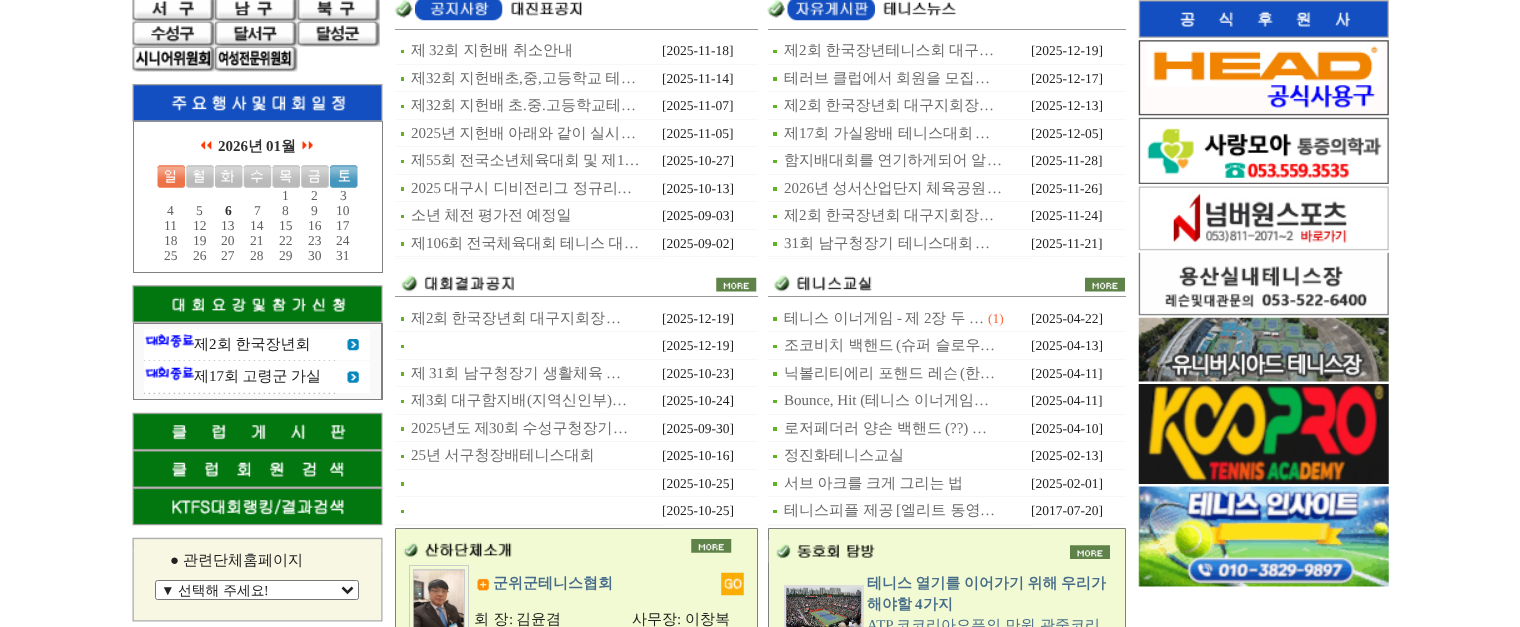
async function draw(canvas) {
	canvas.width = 1520;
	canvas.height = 627;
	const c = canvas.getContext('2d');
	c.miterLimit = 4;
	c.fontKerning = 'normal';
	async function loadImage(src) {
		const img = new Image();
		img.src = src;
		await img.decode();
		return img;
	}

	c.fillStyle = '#fff';
	c.fillRect(0, 0, 1520, 627);
	c.drawImage(await loadImage('img1.png'), 132, 0, 83, 22);
	c.drawImage(await loadImage('img2.png'), 215, 0, 83, 22);
	c.drawImage(await loadImage('img3.png'), 297, 0, 83, 22);
	c.drawImage(await loadImage('img4.png'), 132, 21, 83, 26);
	c.drawImage(await loadImage('img5.png'), 215, 21, 83, 26);
	c.drawImage(await loadImage('img6.png'), 297, 21, 83, 26);
	c.drawImage(await loadImage('img7.png'), 132, 46, 83, 26);
	c.drawImage(await loadImage('img8.png'), 215, 46, 83, 26);
	c.strokeStyle = '#808080';
	c.strokeRect(133.5, 121.5, 249, 151);
	c.drawImage(await loadImage('img9.png'), 132, 84, 251, 38);
	c.drawImage(await loadImage('img10.png'), 201, 141, 11, 9);
	c.font = 'bold 15px Liberation Serif';
	c.fillStyle = '#303030';
	c.fillText('2026', 218, 151);
	c.font = 'bold 15px WenQuanYi Zen Hei';
	c.fillText('년', 248, 151);
	c.font = 'bold 15px Liberation Serif';
	c.fillText('01', 266, 151);
	c.font = 'bold 15px WenQuanYi Zen Hei';
	c.fillText('월', 281, 151);
	c.drawImage(await loadImage('img11.png'), 302, 141, 11, 9);
	c.drawImage(await loadImage('img12.png'), 157, 165, 28, 23);
	c.drawImage(await loadImage('img13.png'), 186, 165, 28, 23);
	c.drawImage(await loadImage('img14.png'), 215, 165, 28, 23);
	c.drawImage(await loadImage('img15.png'), 243, 165, 29, 23);
	c.drawImage(await loadImage('img16.png'), 272, 165, 28, 23);
	c.drawImage(await loadImage('img17.png'), 301, 165, 28, 23);
	c.drawImage(await loadImage('img18.png'), 330, 165, 28, 23);
	c.font = '13.5px Liberation Serif';
	c.fillStyle = '#606060';
	for (const [text, x, y] of [
		['1', 282, 200],
		['2', 311, 200],
		['3', 340, 200],
		['4', 167, 215],
		['5', 196, 215],
	]) {
		c.fillText(text, x, y);
	}
	c.font = 'bold 13.5px Liberation Serif';
	c.fillStyle = '#303030';
	c.fillText('6', 225, 215);
	c.font = '13.5px Liberation Serif';
	c.fillStyle = '#606060';
	for (const [text, x, y] of [
		['7', 254, 215],
		['8', 282, 215],
		['9', 311, 215],
		['10', 336, 215],
		['11', 164, 230],
		['12', 193, 230],
		['13', 221, 230],
		['14', 250, 230],
		['15', 279, 230],
		['16', 308, 230],
		['17', 336, 230],
		['18', 164, 245],
		['19', 193, 245],
		['20', 221, 245],
		['21', 250, 245],
		['22', 279, 245],
		['23', 308, 245],
		['24', 336, 245],
		['25', 164, 260],
		['26', 193, 260],
		['27', 221, 260],
		['28', 250, 260],
		['29', 279, 260],
		['30', 308, 260],
		['31', 336, 260],
	]) {
		c.fillText(text, x, y);
	}
	c.drawImage(await loadImage('img19.png'), 132, 285, 251, 38);
	for (const [x, y, w, h, color] of [
		[133, 323, 250, 77, '#808080'],
		[134, 324, 247, 75, '#f9f9f9'],
		[144, 329, 226, 31, '#fff'],
	]) {
		c.fillStyle = color;
		c.fillRect(x, y, w, h);
	}
	c.drawImage(await loadImage('img20.png'), 144, 334, 50, 14);
	c.font = '500 15px WenQuanYi Zen Hei';
	c.fillStyle = '#222';
	c.fillText('제', 194, 349);
	c.font = '15px Liberation Serif';
	c.fillText('2', 209, 349);
	c.wordSpacing = '-1px';
	c.font = '500 15px WenQuanYi Zen Hei';
	c.fillText('회 한국장년회', 217, 349);
	c.drawImage(await loadImage('img21.png'), 347, 339, 12, 12);
	c.drawImage(await loadImage('img22.png'), 144, 360, 191, 1);
	c.fillStyle = '#fff';
	c.fillRect(144, 361, 226, 32);
	c.drawImage(await loadImage('img23.png'), 144, 366, 50, 15);
	c.wordSpacing = '0px';
	c.fillStyle = '#222';
	c.fillText('제', 194, 381);
	c.font = '15px Liberation Serif';
	c.fillText('17', 209, 381);
	c.wordSpacing = '-1px';
	c.font = '500 15px WenQuanYi Zen Hei';
	c.fillText('회 고령군 가실', 224, 381);
	c.drawImage(await loadImage('img24.png'), 347, 371, 12, 12);
	c.drawImage(await loadImage('img25.png'), 143, 392, 192, 2);
	c.drawImage(await loadImage('img26.png'), 132, 412, 251, 39);
	c.drawImage(await loadImage('img27.png'), 132, 450, 251, 38);
	c.drawImage(await loadImage('img28.png'), 132, 487, 251, 39);
	c.drawImage(await loadImage('img29.png'), 132, 537, 251, 14);
	c.drawImage(await loadImage('img30.png'), 132, 550, 251, 59);
	c.wordSpacing = '0px';
	c.font = '15px Liberation Serif';
	c.fillText('●', 170, 565);
	c.font = '500 15px WenQuanYi Zen Hei';
	c.fillText('관련단체홈페이지', 183, 565);
	c.fillStyle = '#fff';
	c.beginPath();
	c.roundRect(155.5, 580.5, 203, 19, 2);
	c.fill();
	c.strokeStyle = '#767676';
	c.stroke();
	c.beginPath();
	c.moveTo(342.5, 587.5);
	c.lineTo(347.5, 592.5);
	c.lineTo(352.5, 587.5);
	c.strokeStyle = '#222';
	c.lineWidth = 2.5;
	c.stroke();
	c.font = '13.75px Liberation Serif';
	c.fillStyle = '#222';
	c.fillText('▼', 161, 595);
	c.font = '500 13.75px WenQuanYi Zen Hei';
	c.fillText('선택해 주세요', 178, 595);
	c.font = '13.75px Liberation Serif';
	c.fillText('!', 264, 595);
	c.drawImage(await loadImage('img31.png'), 132, 609, 251, 13);
	c.drawImage(await loadImage('img32.png'), 395, 0, 18, 18);
	c.drawImage(await loadImage('img33.png'), 415, 0, 88, 21);
	c.drawImage(await loadImage('img34.png'), 502, 1, 80, 15);
	c.fillStyle = '#999';
	c.fillRect(395, 29, 363, 1);
	c.fillStyle = '#61b122';
	c.fillRect(401, 50, 3, 3);
	c.font = '500 15px WenQuanYi Zen Hei';
	c.fillStyle = '#6a6a6a';
	c.fillText('제', 411, 55);
	c.font = '15px Liberation Serif';
	c.fillText('32', 429, 55);
	c.font = '500 15px WenQuanYi Zen Hei';
	c.fillText('회 지헌배 취소안내', 444, 55);
	c.font = '13.5px Liberation Serif';
	c.fillStyle = '#222';
	c.fillText('[2025-11-18]', 662, 55);
	c.fillStyle = '#f7f7f7';
	c.fillRect(395, 64, 363, 1);
	c.fillStyle = '#61b122';
	c.fillRect(401, 77, 3, 4);
	c.font = '500 15px WenQuanYi Zen Hei';
	c.fillStyle = '#6a6a6a';
	c.fillText('제', 411, 83);
	c.font = '15px Liberation Serif';
	c.fillText('32', 426, 83);
	c.wordSpacing = '-1px';
	c.font = '500 15px WenQuanYi Zen Hei';
	c.fillText('회 지헌배초', 441, 83);
	c.wordSpacing = '0px';
	c.fillText('중', 523, 83);
	c.wordSpacing = '-1px';
	c.fillText('고등학교 테', 542, 83);
	c.wordSpacing = '0px';
	c.font = '15px Liberation Serif';
	for (const [text, x, y] of [
		[',', 519, 83],
		[',', 538, 83],
		['…', 621, 83],
	]) {
		c.fillText(text, x, y);
	}
	c.font = '13.5px Liberation Serif';
	c.fillStyle = '#222';
	c.fillText('[2025-11-14]', 662, 83);
	c.fillStyle = '#f7f7f7';
	c.fillRect(395, 91, 363, 1);
	c.fillStyle = '#61b122';
	c.fillRect(401, 105, 3, 3);
	c.font = '500 15px WenQuanYi Zen Hei';
	c.fillStyle = '#6a6a6a';
	c.fillText('제', 411, 110);
	c.font = '15px Liberation Serif';
	c.fillText('32', 426, 110);
	c.wordSpacing = '-1px';
	c.font = '500 15px WenQuanYi Zen Hei';
	c.fillText('회 지헌배 초', 441, 110);
	c.wordSpacing = '0px';
	c.fillText('중', 527, 110);
	c.fillText('고등학교테', 546, 110);
	c.font = '15px Liberation Serif';
	for (const [text, x, y] of [
		['.', 523, 110],
		['.', 542, 110],
		['…', 621, 110],
	]) {
		c.fillText(text, x, y);
	}
	c.font = '13.5px Liberation Serif';
	c.fillStyle = '#222';
	c.fillText('[2025-11-07]', 662, 110);
	c.fillStyle = '#f7f7f7';
	c.fillRect(395, 119, 363, 1);
	c.fillStyle = '#61b122';
	c.fillRect(401, 132, 3, 4);
	c.font = '15px Liberation Serif';
	c.fillStyle = '#6a6a6a';
	c.fillText('2025', 411, 138);
	c.wordSpacing = '-1px';
	c.font = '500 15px WenQuanYi Zen Hei';
	c.fillText('년 지헌배 아래와 같이 실시', 441, 138);
	c.wordSpacing = '0px';
	c.font = '15px Liberation Serif';
	c.fillText('…', 621, 138);
	c.font = '13.5px Liberation Serif';
	c.fillStyle = '#222';
	c.fillText('[2025-11-05]', 662, 138);
	c.fillStyle = '#f7f7f7';
	c.fillRect(395, 146, 363, 1);
	c.fillStyle = '#61b122';
	c.fillRect(401, 160, 3, 3);
	c.font = '500 15px WenQuanYi Zen Hei';
	c.fillStyle = '#6a6a6a';
	c.fillText('제', 411, 165);
	c.font = '15px Liberation Serif';
	c.fillText('55', 426, 165);
	c.wordSpacing = '-1px';
	c.font = '500 15px WenQuanYi Zen Hei';
	c.fillText('회 전국소년체육대회 및 제', 441, 165);
	c.wordSpacing = '0px';
	c.font = '15px Liberation Serif';
	c.fillText('1…', 617, 165);
	c.font = '13.5px Liberation Serif';
	c.fillStyle = '#222';
	c.fillText('[2025-10-27]', 662, 165);
	c.fillStyle = '#f7f7f7';
	c.fillRect(395, 174, 363, 1);
	c.fillStyle = '#61b122';
	c.fillRect(401, 187, 3, 4);
	c.font = '15px Liberation Serif';
	c.fillStyle = '#6a6a6a';
	c.fillText('2025', 411, 193);
	c.font = '500 15px WenQuanYi Zen Hei';
	c.fillText('대구시 디비전리그 정규리', 444, 193);
	c.font = '15px Liberation Serif';
	c.fillText('…', 617, 193);
	c.font = '13.5px Liberation Serif';
	c.fillStyle = '#222';
	c.fillText('[2025-10-13]', 662, 193);
	c.fillStyle = '#f7f7f7';
	c.fillRect(395, 201, 363, 1);
	c.fillStyle = '#61b122';
	c.fillRect(401, 215, 3, 3);
	c.wordSpacing = '-1px';
	c.font = '500 15px WenQuanYi Zen Hei';
	c.fillStyle = '#6a6a6a';
	c.fillText('소년 체전', 411, 220);
	c.fillText('평가전 예정일', 478, 220);
	c.wordSpacing = '0px';
	c.font = '13.5px Liberation Serif';
	c.fillStyle = '#222';
	c.fillText('[2025-09-03]', 662, 220);
	c.fillStyle = '#f7f7f7';
	c.fillRect(395, 229, 363, 1);
	c.fillStyle = '#61b122';
	c.fillRect(401, 242, 3, 4);
	c.font = '500 15px WenQuanYi Zen Hei';
	c.fillStyle = '#6a6a6a';
	c.fillText('제', 411, 248);
	c.font = '15px Liberation Serif';
	c.fillText('106', 426, 248);
	c.wordSpacing = '-1px';
	c.font = '500 15px WenQuanYi Zen Hei';
	c.fillText('회 전국체육대회 테니스 대', 448, 248);
	c.wordSpacing = '0px';
	c.font = '15px Liberation Serif';
	c.fillText('…', 624, 248);
	c.font = '13.5px Liberation Serif';
	c.fillStyle = '#222';
	c.fillText('[2025-09-02]', 662, 248);
	c.fillStyle = '#f7f7f7';
	c.fillRect(395, 256, 363, 1);
	c.fillRect(395, 258, 268, 1);
	c.drawImage(await loadImage('img35.png'), 767, 0, 18, 18);
	c.drawImage(await loadImage('img36.png'), 787, 0, 88, 21);
	c.drawImage(await loadImage('img37.png'), 883, 1, 74, 15);
	c.fillStyle = '#999';
	c.fillRect(768, 29, 358, 1);
	c.fillStyle = '#61b122';
	c.fillRect(773, 50, 4, 3);
	c.font = '500 15px WenQuanYi Zen Hei';
	c.fillStyle = '#6a6a6a';
	c.fillText('제', 784, 55);
	c.font = '15px Liberation Serif';
	c.fillText('2', 799, 55);
	c.wordSpacing = '-1px';
	c.font = '500 15px WenQuanYi Zen Hei';
	c.fillText('회 한국장년테니스회 대구', 807, 55);
	c.wordSpacing = '0px';
	c.font = '15px Liberation Serif';
	c.fillText('…', 979, 55);
	c.font = '13.5px Liberation Serif';
	c.fillStyle = '#222';
	c.fillText('[2025-12-19]', 1031, 55);
	c.fillStyle = '#f7f7f7';
	c.fillRect(768, 64, 358, 1);
	c.fillStyle = '#61b122';
	c.fillRect(773, 77, 4, 4);
	c.wordSpacing = '-1px';
	c.font = '500 15px WenQuanYi Zen Hei';
	c.fillStyle = '#6a6a6a';
	c.fillText('테러브 클럽에서 회원을 모집', 784, 83);
	c.wordSpacing = '0px';
	c.font = '15px Liberation Serif';
	c.fillText('…', 975, 83);
	c.font = '13.5px Liberation Serif';
	c.fillStyle = '#222';
	c.fillText('[2025-12-17]', 1031, 83);
	c.fillStyle = '#f7f7f7';
	c.fillRect(768, 91, 358, 1);
	c.fillStyle = '#61b122';
	c.fillRect(773, 105, 4, 3);
	c.font = '500 15px WenQuanYi Zen Hei';
	c.fillStyle = '#6a6a6a';
	c.fillText('제', 784, 110);
	c.font = '15px Liberation Serif';
	c.fillText('2', 799, 110);
	c.wordSpacing = '-1px';
	c.font = '500 15px WenQuanYi Zen Hei';
	c.fillText('회 한국장년회 대구지회장', 807, 110);
	c.wordSpacing = '0px';
	c.font = '15px Liberation Serif';
	c.fillText('…', 979, 110);
	c.font = '13.5px Liberation Serif';
	c.fillStyle = '#222';
	c.fillText('[2025-12-13]', 1031, 110);
	c.fillStyle = '#f7f7f7';
	c.fillRect(768, 119, 358, 1);
	c.fillStyle = '#61b122';
	c.fillRect(773, 132, 4, 4);
	c.font = '500 15px WenQuanYi Zen Hei';
	c.fillStyle = '#6a6a6a';
	c.fillText('제', 784, 138);
	c.font = '15px Liberation Serif';
	c.fillText('17', 799, 138);
	c.font = '500 15px WenQuanYi Zen Hei';
	c.fillText('회 가실왕배 테니스대회', 814, 138);
	c.font = '15px Liberation Serif';
	c.fillText('…', 975, 138);
	c.font = '13.5px Liberation Serif';
	c.fillStyle = '#222';
	c.fillText('[2025-12-05]', 1031, 138);
	c.fillStyle = '#f7f7f7';
	c.fillRect(768, 146, 358, 1);
	c.fillStyle = '#61b122';
	c.fillRect(773, 160, 4, 3);
	c.wordSpacing = '-1px';
	c.font = '500 15px WenQuanYi Zen Hei';
	c.fillStyle = '#6a6a6a';
	c.fillText('함지배대회를 연기하게되어 알', 784, 165);
	c.wordSpacing = '0px';
	c.font = '15px Liberation Serif';
	c.fillText('…', 987, 165);
	c.font = '13.5px Liberation Serif';
	c.fillStyle = '#222';
	c.fillText('[2025-11-28]', 1031, 165);
	c.fillStyle = '#f7f7f7';
	c.fillRect(768, 174, 358, 1);
	c.fillStyle = '#61b122';
	c.fillRect(773, 187, 4, 4);
	c.font = '15px Liberation Serif';
	c.fillStyle = '#6a6a6a';
	c.fillText('2026', 784, 193);
	c.wordSpacing = '-1px';
	c.font = '500 15px WenQuanYi Zen Hei';
	c.fillText('년 성서산업단지 체육공원', 814, 193);
	c.wordSpacing = '0px';
	c.font = '15px Liberation Serif';
	c.fillText('…', 987, 193);
	c.font = '13.5px Liberation Serif';
	c.fillStyle = '#222';
	c.fillText('[2025-11-26]', 1031, 193);
	c.fillStyle = '#f7f7f7';
	c.fillRect(768, 201, 358, 1);
	c.fillStyle = '#61b122';
	c.fillRect(773, 215, 4, 3);
	c.font = '500 15px WenQuanYi Zen Hei';
	c.fillStyle = '#6a6a6a';
	c.fillText('제', 784, 220);
	c.font = '15px Liberation Serif';
	c.fillText('2', 799, 220);
	c.wordSpacing = '-1px';
	c.font = '500 15px WenQuanYi Zen Hei';
	c.fillText('회 한국장년회 대구지회장', 807, 220);
	c.wordSpacing = '0px';
	c.font = '15px Liberation Serif';
	c.fillText('…', 979, 220);
	c.font = '13.5px Liberation Serif';
	c.fillStyle = '#222';
	c.fillText('[2025-11-24]', 1031, 220);
	c.fillStyle = '#f7f7f7';
	c.fillRect(768, 229, 358, 1);
	c.fillStyle = '#61b122';
	c.fillRect(773, 242, 4, 4);
	c.font = '15px Liberation Serif';
	c.fillStyle = '#6a6a6a';
	c.fillText('31', 784, 248);
	c.font = '500 15px WenQuanYi Zen Hei';
	c.fillText('회 남구청장기 테니스대회', 799, 248);
	c.font = '15px Liberation Serif';
	c.fillText('…', 975, 248);
	c.font = '13.5px Liberation Serif';
	c.fillStyle = '#222';
	c.fillText('[2025-11-21]', 1031, 248);
	c.fillStyle = '#f7f7f7';
	c.fillRect(768, 256, 358, 1);
	c.fillRect(768, 258, 263, 1);
	c.drawImage(await loadImage('img38.png'), 401, 275, 113, 17);
	c.drawImage(await loadImage('img39.png'), 716, 277, 41, 15);
	c.fillStyle = '#999';
	c.fillRect(395, 296, 363, 1);
	c.fillStyle = '#61b122';
	c.fillRect(401, 317, 3, 4);
	c.font = '500 15px WenQuanYi Zen Hei';
	c.fillStyle = '#6a6a6a';
	c.fillText('제', 411, 323);
	c.font = '15px Liberation Serif';
	c.fillText('2', 426, 323);
	c.wordSpacing = '-1px';
	c.font = '500 15px WenQuanYi Zen Hei';
	c.fillText('회 한국장년회 대구지회장', 433, 323);
	c.wordSpacing = '0px';
	c.font = '15px Liberation Serif';
	c.fillText('…', 606, 323);
	c.font = '13.5px Liberation Serif';
	c.fillStyle = '#222';
	c.fillText('[2025-12-19]', 662, 323);
	c.fillStyle = '#f7f7f7';
	c.fillRect(395, 331, 363, 1);
	c.fillStyle = '#61b122';
	c.fillRect(401, 345, 3, 3);
	c.fillStyle = '#222';
	c.fillText('[2025-12-19]', 662, 350);
	c.fillStyle = '#f7f7f7';
	c.fillRect(395, 359, 363, 1);
	c.fillStyle = '#61b122';
	c.fillRect(401, 372, 3, 4);
	c.font = '500 15px WenQuanYi Zen Hei';
	c.fillStyle = '#6a6a6a';
	c.fillText('제', 411, 378);
	c.font = '15px Liberation Serif';
	c.fillText('31', 429, 378);
	c.font = '500 15px WenQuanYi Zen Hei';
	c.fillText('회 남구청장기 생활체육', 444, 378);
	c.font = '15px Liberation Serif';
	c.fillText('…', 606, 378);
	c.font = '13.5px Liberation Serif';
	c.fillStyle = '#222';
	c.fillText('[2025-10-23]', 662, 378);
	c.fillStyle = '#f7f7f7';
	c.fillRect(395, 386, 363, 1);
	c.fillStyle = '#61b122';
	c.fillRect(401, 400, 3, 3);
	c.font = '500 15px WenQuanYi Zen Hei';
	c.fillStyle = '#6a6a6a';
	c.fillText('제', 411, 405);
	c.font = '15px Liberation Serif';
	c.fillText('3', 426, 405);
	c.wordSpacing = '-1px';
	c.font = '500 15px WenQuanYi Zen Hei';
	c.fillText('회 대구함지배', 433, 405);
	c.wordSpacing = '0px';
	c.font = '15px Liberation Serif';
	c.fillText('(', 527, 405);
	c.font = '500 15px WenQuanYi Zen Hei';
	c.fillText('지역신인부', 532, 405);
	c.font = '15px Liberation Serif';
	c.fillText(')…', 607, 405);
	c.font = '13.5px Liberation Serif';
	c.fillStyle = '#222';
	c.fillText('[2025-10-24]', 662, 405);
	c.fillStyle = '#f7f7f7';
	c.fillRect(395, 414, 363, 1);
	c.fillStyle = '#61b122';
	c.fillRect(401, 427, 3, 4);
	c.font = '15px Liberation Serif';
	c.fillStyle = '#6a6a6a';
	c.fillText('2025', 411, 433);
	c.wordSpacing = '-1px';
	c.font = '500 15px WenQuanYi Zen Hei';
	c.fillText('년도 제', 441, 433);
	c.wordSpacing = '0px';
	c.font = '15px Liberation Serif';
	c.fillText('30', 489, 433);
	c.wordSpacing = '-1px';
	c.font = '500 15px WenQuanYi Zen Hei';
	c.fillText('회 수성구청장기', 504, 433);
	c.wordSpacing = '0px';
	c.font = '15px Liberation Serif';
	c.fillText('…', 613, 433);
	c.font = '13.5px Liberation Serif';
	c.fillStyle = '#222';
	c.fillText('[2025-09-30]', 662, 433);
	c.fillStyle = '#f7f7f7';
	c.fillRect(395, 441, 363, 1);
	c.fillStyle = '#61b122';
	c.fillRect(401, 455, 3, 3);
	c.font = '15px Liberation Serif';
	c.fillStyle = '#6a6a6a';
	c.fillText('25', 411, 460);
	c.wordSpacing = '-1px';
	c.font = '500 15px WenQuanYi Zen Hei';
	c.fillText('년 서구청장배테니스대회', 426, 460);
	c.wordSpacing = '0px';
	c.font = '13.5px Liberation Serif';
	c.fillStyle = '#222';
	c.fillText('[2025-10-16]', 662, 460);
	c.fillStyle = '#f7f7f7';
	c.fillRect(395, 469, 363, 1);
	c.fillStyle = '#61b122';
	c.fillRect(401, 482, 3, 4);
	c.fillStyle = '#222';
	c.fillText('[2025-10-25]', 662, 488);
	c.fillStyle = '#f7f7f7';
	c.fillRect(395, 496, 363, 1);
	c.fillStyle = '#61b122';
	c.fillRect(401, 510, 3, 3);
	c.fillStyle = '#222';
	c.fillText('[2025-10-25]', 662, 515);
	c.fillStyle = '#f7f7f7';
	c.fillRect(395, 524, 363, 1);
	c.fillRect(395, 525, 268, 1);
	c.fillStyle = '#f1fad2';
	c.beginPath();
	c.rect(395.5, 528.5, 362, 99);
	c.fill();
	c.strokeStyle = '#808080';
	c.lineWidth = 1;
	c.stroke();
	c.drawImage(await loadImage('img40.png'), 403, 542, 109, 15);
	c.drawImage(await loadImage('img41.png'), 691, 539, 41, 14);
	c.strokeStyle = '#ccc';
	c.strokeRect(409.5, 565.5, 59, 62);
	c.strokeRect(413.5, 569.5, 51, 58);
	c.drawImage(await loadImage('img42.png'), 413, 570, 51, 57);
	c.drawImage(await loadImage('img43.png'), 477, 578, 12, 13);
	c.font = 'bold 15px WenQuanYi Zen Hei';
	c.fillStyle = '#466c8a';
	c.fillText('군위군테니스협회', 493, 588);
	c.drawImage(await loadImage('img44.png'), 721, 572, 23, 24);
	c.font = '500 15px WenQuanYi Zen Hei';
	c.fillStyle = '#222';
	c.fillText('회 장', 474, 624);
	c.font = '15px Liberation Serif';
	c.fillText(':', 509, 624);
	c.font = '500 15px WenQuanYi Zen Hei';
	c.fillText('김윤겸', 516, 624);
	c.fillText('사무장', 632, 624);
	c.font = '15px Liberation Serif';
	c.fillText(':', 677, 624);
	c.font = '500 15px WenQuanYi Zen Hei';
	c.fillText('이창복', 685, 624);
	c.drawImage(await loadImage('img45.png'), 773, 275, 99, 17);
	c.drawImage(await loadImage('img46.png'), 1085, 277, 40, 15);
	c.fillStyle = '#999';
	c.fillRect(768, 296, 358, 1);
	c.fillStyle = '#61b122';
	c.fillRect(773, 317, 4, 4);
	c.fillStyle = '#6a6a6a';
	c.fillText('테니스 이너게임', 784, 323);
	c.font = '15px Liberation Serif';
	c.fillText('-', 897, 323);
	c.font = '500 15px WenQuanYi Zen Hei';
	c.fillText('제', 905, 323);
	c.font = '15px Liberation Serif';
	c.fillText('2', 924, 323);
	c.font = '500 15px WenQuanYi Zen Hei';
	c.fillText('장 두', 931, 323);
	c.font = '13.5px Liberation Serif';
	c.fillStyle = '#f63';
	c.fillText('(1)', 988, 323);
	c.font = '15px Liberation Serif';
	c.fillStyle = '#6a6a6a';
	c.fillText('…', 969, 323);
	c.font = '13.5px Liberation Serif';
	c.fillStyle = '#222';
	c.fillText('[2025-04-22]', 1031, 323);
	c.fillStyle = '#f7f7f7';
	c.fillRect(768, 331, 358, 1);
	c.fillStyle = '#61b122';
	c.fillRect(773, 345, 4, 3);
	c.font = '500 15px WenQuanYi Zen Hei';
	c.fillStyle = '#6a6a6a';
	c.fillText('조코비치 백핸드', 784, 350);
	c.font = '15px Liberation Serif';
	c.fillText('(', 896, 350);
	c.font = '500 15px WenQuanYi Zen Hei';
	c.fillText('슈퍼 슬로우', 901, 350);
	c.font = '15px Liberation Serif';
	c.fillText('…', 980, 350);
	c.font = '13.5px Liberation Serif';
	c.fillStyle = '#222';
	c.fillText('[2025-04-13]', 1031, 350);
	c.fillStyle = '#f7f7f7';
	c.fillRect(768, 359, 358, 1);
	c.fillStyle = '#61b122';
	c.fillRect(773, 372, 4, 4);
	c.font = '500 15px WenQuanYi Zen Hei';
	c.fillStyle = '#6a6a6a';
	c.fillText('닉볼리티에리 포핸드 레슨', 784, 378);
	c.font = '15px Liberation Serif';
	c.fillText('(', 960, 378);
	c.font = '500 15px WenQuanYi Zen Hei';
	c.fillText('한', 965, 378);
	c.font = '15px Liberation Serif';
	c.fillText('…', 980, 378);
	c.font = '13.5px Liberation Serif';
	c.fillStyle = '#222';
	c.fillText('[2025-04-11]', 1031, 378);
	c.fillStyle = '#f7f7f7';
	c.fillRect(768, 386, 358, 1);
	c.fillStyle = '#61b122';
	c.fillRect(773, 400, 4, 3);
	c.font = '15px Liberation Serif';
	c.fillStyle = '#6a6a6a';
	c.fillText('Bounce, Hit (', 784, 405);
	c.font = '500 15px WenQuanYi Zen Hei';
	c.fillText('테니스', 865, 405);
	c.fillText('이너게임', 914, 405);
	c.font = '15px Liberation Serif';
	c.fillText('…', 974, 405);
	c.font = '13.5px Liberation Serif';
	c.fillStyle = '#222';
	c.fillText('[2025-04-11]', 1031, 405);
	c.fillStyle = '#f7f7f7';
	c.fillRect(768, 414, 358, 1);
	c.fillStyle = '#61b122';
	c.fillRect(773, 427, 4, 4);
	c.font = '500 15px WenQuanYi Zen Hei';
	c.fillStyle = '#6a6a6a';
	for (const [text, x, y] of [
		['로저페더러', 784, 433],
		['양손', 863, 433],
		['백핸드', 897, 433],
	]) {
		c.fillText(text, x, y);
	}
	c.font = '15px Liberation Serif';
	c.fillText('(??) …', 945, 433);
	c.font = '13.5px Liberation Serif';
	c.fillStyle = '#222';
	c.fillText('[2025-04-10]', 1031, 433);
	c.fillStyle = '#f7f7f7';
	c.fillRect(768, 441, 358, 1);
	c.fillStyle = '#61b122';
	c.fillRect(773, 455, 4, 3);
	c.font = '500 15px WenQuanYi Zen Hei';
	c.fillStyle = '#6a6a6a';
	c.fillText('정진화테니스교실', 784, 460);
	c.font = '13.5px Liberation Serif';
	c.fillStyle = '#222';
	c.fillText('[2025-02-13]', 1031, 460);
	c.fillStyle = '#f7f7f7';
	c.fillRect(768, 469, 358, 1);
	c.fillStyle = '#61b122';
	c.fillRect(773, 482, 4, 4);
	c.wordSpacing = '-1px';
	c.font = '500 15px WenQuanYi Zen Hei';
	c.fillStyle = '#6a6a6a';
	c.fillText('서브 아크를 크게 그리는 법', 784, 488);
	c.wordSpacing = '0px';
	c.font = '13.5px Liberation Serif';
	c.fillStyle = '#222';
	c.fillText('[2025-02-01]', 1031, 488);
	c.fillStyle = '#f7f7f7';
	c.fillRect(768, 496, 358, 1);
	c.fillStyle = '#61b122';
	c.fillRect(773, 510, 4, 3);
	c.font = '500 15px WenQuanYi Zen Hei';
	c.fillStyle = '#6a6a6a';
	c.fillText('테니스피플 제공', 784, 515);
	c.font = '15px Liberation Serif';
	c.fillText('[', 896, 515);
	c.font = '500 15px WenQuanYi Zen Hei';
	c.fillText('엘리트 동영', 901, 515);
	c.font = '15px Liberation Serif';
	c.fillText('…', 980, 515);
	c.font = '13.5px Liberation Serif';
	c.fillStyle = '#222';
	c.fillText('[2017-07-20]', 1031, 515);
	c.fillStyle = '#f7f7f7';
	c.fillRect(768, 524, 358, 1);
	c.fillRect(768, 525, 263, 1);
	c.fillStyle = '#f1fad2';
	c.beginPath();
	c.rect(768.5, 528.5, 357, 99);
	c.fill();
	c.strokeStyle = '#808080';
	c.stroke();
	c.drawImage(await loadImage('img47.png'), 768, 540, 107, 23);
	c.drawImage(await loadImage('img48.png'), 1070, 545, 40, 14);
	c.strokeStyle = '#ddd';
	c.lineWidth = 3;
	c.strokeRect(785.5, 586.5, 77, 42);
	c.drawImage(await loadImage('img49.png'), 786, 587, 76, 40);
	c.wordSpacing = '-1px';
	c.font = 'bold 15px WenQuanYi Zen Hei';
	c.fillStyle = '#466c8a';
	c.fillText('테니스 열기를 이어가기 위해 우리가', 867, 588);
	c.wordSpacing = '0px';
	c.fillText('해야할', 867, 609);
	c.font = 'bold 15px Liberation Serif';
	c.fillText('4', 915, 609);
	c.font = 'bold 15px WenQuanYi Zen Hei';
	c.fillText('가지', 923, 609);
	c.font = '15px Liberation Serif';
	c.fillText('ATP', 867, 630);
	c.font = '500 15px WenQuanYi Zen Hei';
	c.fillText('코코리아오픈의 만원 관중코리', 896, 630);
	c.drawImage(await loadImage('img50.png'), 1138, 0, 251, 38);
	c.drawImage(await loadImage('img51.png'), 1138, 40, 251, 76);
	c.drawImage(await loadImage('img52.png'), 1138, 117, 251, 67);
	c.drawImage(await loadImage('img53.png'), 1138, 186, 251, 65);
	c.drawImage(await loadImage('img54.png'), 1138, 252, 251, 64);
	c.drawImage(await loadImage('img55.png'), 1138, 317, 251, 65);
	c.drawImage(await loadImage('img56.png'), 1138, 384, 251, 100);
	c.drawImage(await loadImage('img57.png'), 1138, 486, 251, 101);
}

draw(document.querySelector('canvas'));
